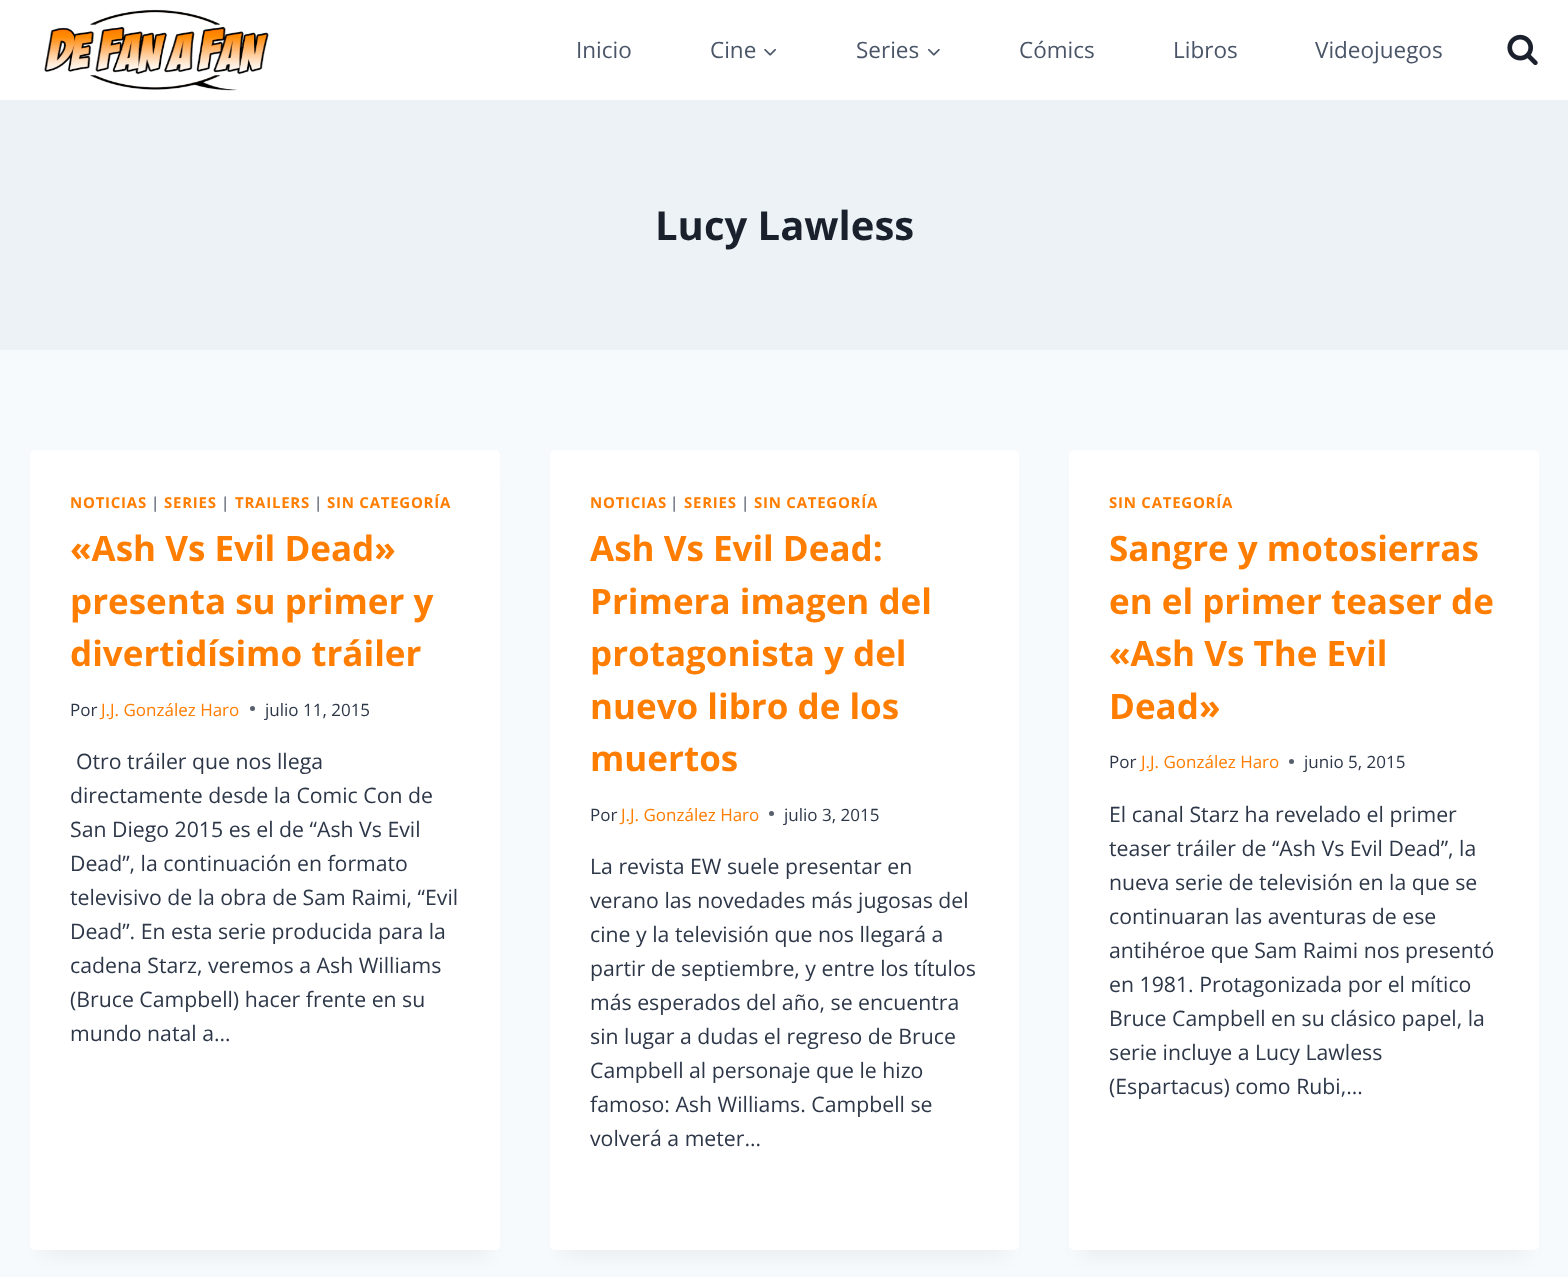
async function draw(canvas) {
	canvas.width = 1568;
	canvas.height = 1277;
	const c = canvas.getContext('2d');
	c.miterLimit = 4;
	c.fontKerning = 'normal';
	async function loadImage(src) {
		const img = new Image();
		img.src = src;
		await img.decode();
		return img;
	}

	c.fillStyle = '#f7fafc';
	c.fillRect(0, 0, 1568, 1277);
	c.fillStyle = '#fff';
	c.fillRect(0, 0, 1568, 100);
	c.drawImage(await loadImage('img1.png'), 44, 9, 225, 82);
	c.font = '22.5px Open Sans';
	c.fillStyle = '#4a5568';
	c.fillText('Inicio', 576, 58);
	c.fillText('Cine', 710, 58);
	c.drawImage(await loadImage('img2.png'), 764, 48, 12, 8);
	c.fillText('Series', 856, 58);
	c.drawImage(await loadImage('img3.png'), 928, 48, 12, 8);
	for (const [text, x, y] of [
		['Cómics', 1019, 58],
		['Libros', 1173, 58],
		['Videojuegos', 1315, 58],
	]) {
		c.fillText(text, x, y);
	}
	c.drawImage(await loadImage('img4.png'), 1507, 34, 31, 31);
	c.fillStyle = '#edf2f7';
	c.fillRect(0, 100, 1568, 250);
	c.font = 'bold 40px Open Sans';
	c.fillStyle = '#1a202c';
	c.fillText('Lucy Lawless', 655, 240);
	c.fillStyle = '#0000000d';
	c.filter = 'blur(9.5px)';
	c.beginPath();
	c.rect(43, 481, 445, 775);
	c.fill();
	c.filter = 'none';
	c.fillStyle = '#fff';
	c.beginPath();
	c.roundRect(30, 450, 470, 800, 5);
	c.fill();
	c.letterSpacing = '0.75px';
	c.font = 'bold 15px Open Sans';
	c.fillStyle = '#ff7d00';
	c.fillText('NOTICIAS', 70, 508);
	c.font = '15px Open Sans';
	c.fillStyle = '#2d3748';
	c.fillText('|', 151, 508);
	c.font = 'bold 15px Open Sans';
	c.fillStyle = '#ff7d00';
	c.fillText('SERIES', 164, 508);
	c.font = '15px Open Sans';
	c.fillStyle = '#2d3748';
	c.fillText('|', 221, 508);
	c.font = 'bold 15px Open Sans';
	c.fillStyle = '#ff7d00';
	c.fillText('TRAILERS', 235, 508);
	c.font = '15px Open Sans';
	c.fillStyle = '#2d3748';
	c.fillText('|', 314, 508);
	c.font = 'bold 15px Open Sans';
	c.fillStyle = '#ff7d00';
	c.fillText('SIN CATEGORÍA', 327, 508);
	c.letterSpacing = '0px';
	c.font = 'bold 35px Open Sans';
	for (const [text, x, y] of [
		['«Ash Vs Evil Dead»', 70, 561],
		['presenta su primer y', 70, 614],
		['divertidísimo tráiler', 70, 666],
	]) {
		c.fillText(text, x, y);
	}
	c.font = '17px Open Sans';
	c.fillStyle = '#2d3748';
	c.fillText('Por', 70, 716);
	c.fillStyle = '#ff7d00';
	c.fillText('J.J. González Haro', 101, 716);
	c.fillStyle = '#575f6d';
	c.beginPath();
	c.arc(252.5, 708.5, 2.5, 0, 2 * Math.PI);
	c.fill();
	c.fillStyle = '#2d3748';
	c.fillText('julio 11, 2015', 265, 716);
	c.font = '21.25px Open Sans';
	for (const [text, x, y] of [
		['Otro tráiler que nos llega', 76, 769],
		['directamente desde la Comic Con de', 70, 803],
		['San Diego 2015 es el de “Ash Vs Evil', 70, 837],
		['Dead”, la continuación en formato', 70, 871],
		['televisivo de la obra de Sam Raimi, “Evil', 70, 905],
		['Dead”. En esta serie producida para la', 70, 939],
		['cadena Starz, veremos a Ash Williams', 70, 973],
		['(Bruce Campbell) hacer frente en su', 70, 1007],
		['mundo natal a…', 70, 1041],
	]) {
		c.fillText(text, x, y);
	}
	c.fillStyle = '#0000000d';
	c.filter = 'blur(9.5px)';
	c.beginPath();
	c.rect(563, 481, 443, 775);
	c.fill();
	c.filter = 'none';
	c.fillStyle = '#fff';
	c.beginPath();
	c.roundRect(550, 450, 469, 800, 5);
	c.fill();
	c.letterSpacing = '0.75px';
	c.font = 'bold 15px Open Sans';
	c.fillStyle = '#ff7d00';
	c.fillText('NOTICIAS', 590, 508);
	c.font = '15px Open Sans';
	c.fillStyle = '#2d3748';
	c.fillText('|', 670, 508);
	c.font = 'bold 15px Open Sans';
	c.fillStyle = '#ff7d00';
	c.fillText('SERIES', 684, 508);
	c.font = '15px Open Sans';
	c.fillStyle = '#2d3748';
	c.fillText('|', 741, 508);
	c.font = 'bold 15px Open Sans';
	c.fillStyle = '#ff7d00';
	c.fillText('SIN CATEGORÍA', 754, 508);
	c.letterSpacing = '0px';
	c.font = 'bold 35px Open Sans';
	for (const [text, x, y] of [
		['Ash Vs Evil Dead:', 590, 561],
		['Primera imagen del', 590, 614],
		['protagonista y del', 590, 666],
		['nuevo libro de los', 590, 719],
		['muertos', 590, 771],
	]) {
		c.fillText(text, x, y);
	}
	c.font = '17px Open Sans';
	c.fillStyle = '#2d3748';
	c.fillText('Por', 590, 821);
	c.fillStyle = '#ff7d00';
	c.fillText('J.J. González Haro', 621, 821);
	c.fillStyle = '#575f6d';
	c.beginPath();
	c.arc(771.5, 813.5, 2.5, 0, 2 * Math.PI);
	c.fill();
	c.fillStyle = '#2d3748';
	c.fillText('julio 3, 2015', 784, 821);
	c.font = '21.25px Open Sans';
	for (const [text, x, y] of [
		['La revista EW suele presentar en', 590, 874],
		['verano las novedades más jugosas del', 590, 908],
		['cine y la televisión que nos llegará a', 590, 942],
		['partir de septiembre, y entre los títulos', 590, 976],
		['más esperados del año, se encuentra', 590, 1010],
		['sin lugar a dudas el regreso de Bruce', 590, 1044],
		['Campbell al personaje que le hizo', 590, 1078],
		['famoso: Ash Williams. Campbell se', 590, 1112],
		['volverá a meter…', 590, 1146],
	]) {
		c.fillText(text, x, y);
	}
	c.fillStyle = '#0000000d';
	c.filter = 'blur(9.5px)';
	c.beginPath();
	c.rect(1081, 481, 445, 775);
	c.fill();
	c.filter = 'none';
	c.fillStyle = '#fff';
	c.beginPath();
	c.roundRect(1069, 450, 470, 800, 5);
	c.fill();
	c.letterSpacing = '0.75px';
	c.font = 'bold 15px Open Sans';
	c.fillStyle = '#ff7d00';
	c.fillText('SIN CATEGORÍA', 1109, 508);
	c.letterSpacing = '0px';
	c.font = 'bold 35px Open Sans';
	for (const [text, x, y] of [
		['Sangre y motosierras', 1109, 561],
		['en el primer teaser de', 1109, 614],
		['«Ash Vs The Evil', 1109, 666],
		['Dead»', 1109, 719],
	]) {
		c.fillText(text, x, y);
	}
	c.font = '17px Open Sans';
	c.fillStyle = '#2d3748';
	c.fillText('Por', 1109, 768);
	c.fillStyle = '#ff7d00';
	c.fillText('J.J. González Haro', 1141, 768);
	c.fillStyle = '#575f6d';
	c.beginPath();
	c.arc(1291.5, 761.5, 2.5, 0, 2 * Math.PI);
	c.fill();
	c.fillStyle = '#2d3748';
	c.fillText('junio 5, 2015', 1304, 768);
	c.font = '21.25px Open Sans';
	for (const [text, x, y] of [
		['El canal Starz ha revelado el primer', 1109, 822],
		['teaser tráiler de “Ash Vs Evil Dead”, la', 1109, 856],
		['nueva serie de televisión en la que se', 1109, 890],
		['continuaran las aventuras de ese', 1109, 924],
		['antihéroe que Sam Raimi nos presentó', 1109, 958],
		['en 1981. Protagonizada por el mítico', 1109, 992],
		['Bruce Campbell en su clásico papel, la', 1109, 1026],
		['serie incluye a Lucy Lawless', 1109, 1060],
		['(Espartacus) como Rubi,…', 1109, 1094],
	]) {
		c.fillText(text, x, y);
	}
}

draw(document.querySelector('canvas'));
